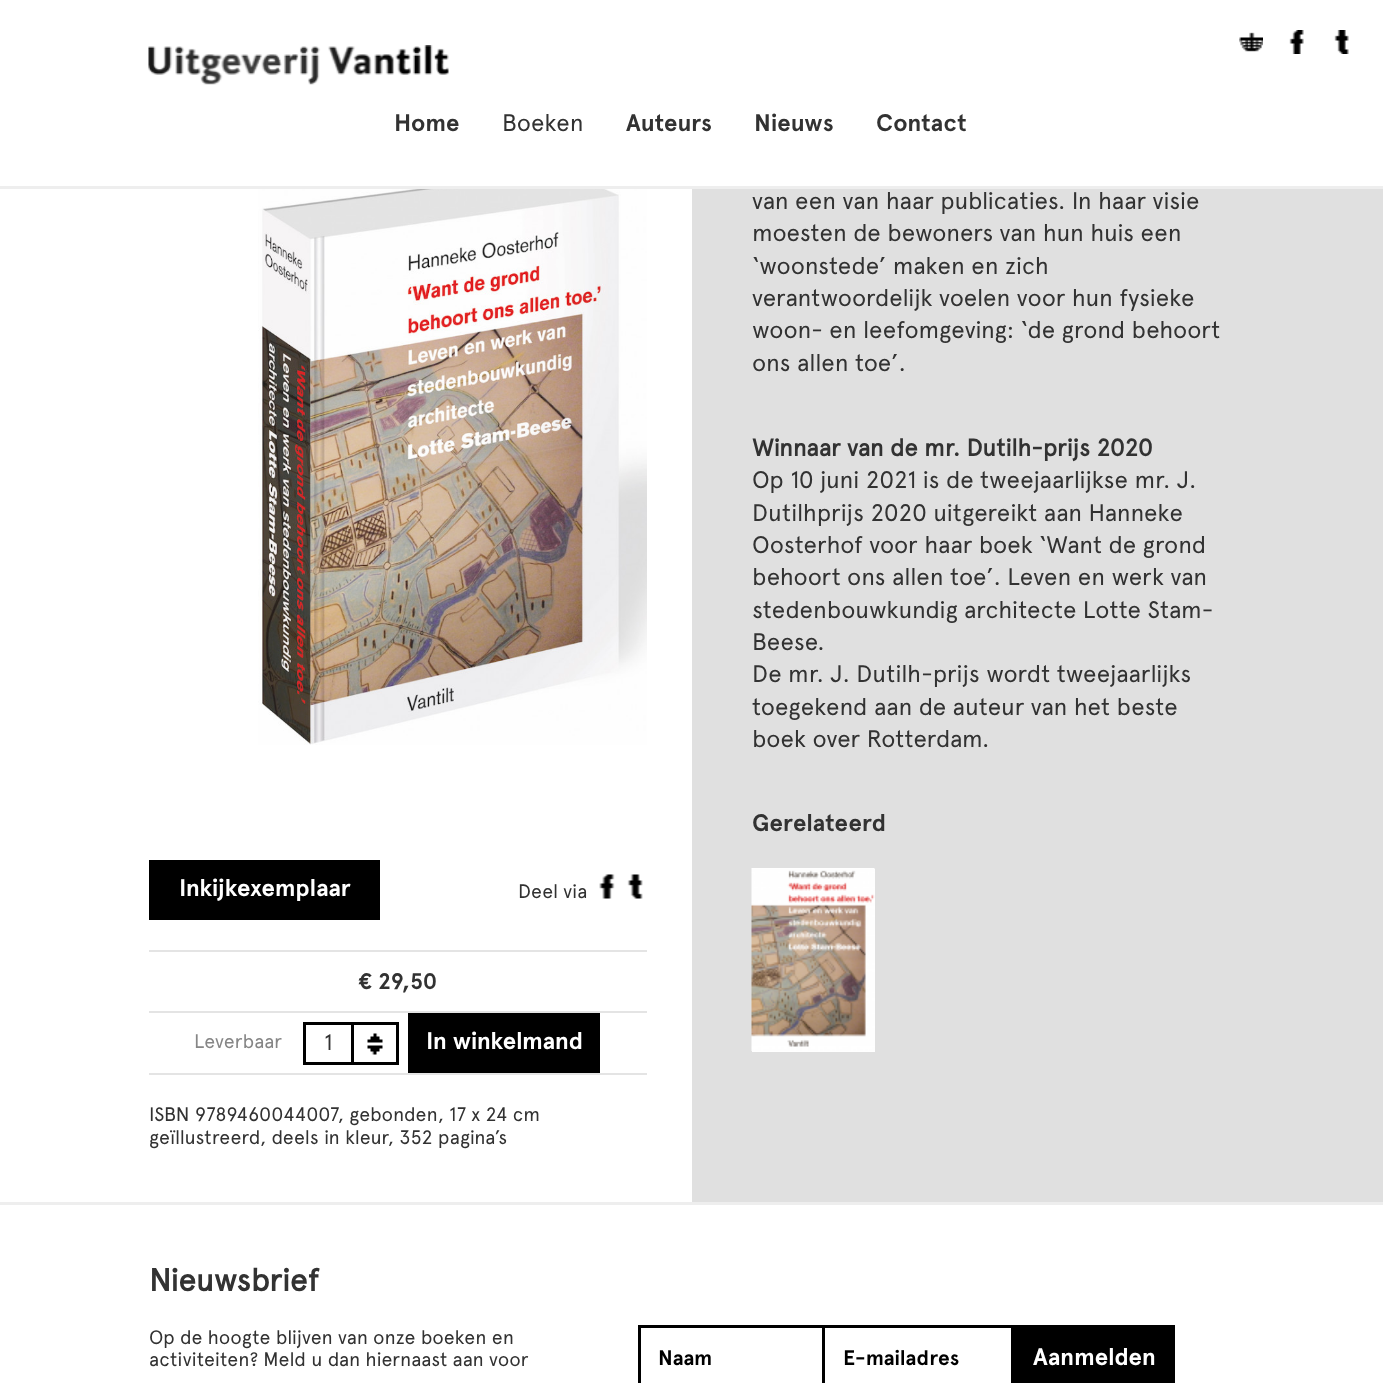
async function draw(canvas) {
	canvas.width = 1383;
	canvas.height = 1383;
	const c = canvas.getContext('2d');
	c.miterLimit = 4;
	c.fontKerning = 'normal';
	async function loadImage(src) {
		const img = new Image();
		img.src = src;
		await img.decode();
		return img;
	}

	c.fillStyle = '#fff';
	c.fillRect(0, 0, 1383, 1383);
	c.fillStyle = '#eee';
	c.fillRect(0, 186, 1383, 3);
	c.drawImage(await loadImage('img1.png'), 148, 45, 301, 40);
	c.drawImage(await loadImage('img2.png'), 1239, 32, 24, 20);
	c.drawImage(await loadImage('img3.png'), 1289, 30, 15, 24);
	c.drawImage(await loadImage('img4.png'), 1334, 30, 15, 24);
	c.font = 'bold 24px "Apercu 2"';
	c.fillStyle = '#323232';
	c.fillText('Home', 394, 131);
	c.font = '24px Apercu';
	c.fillText('Boeken', 502, 131);
	c.font = 'bold 24px "Apercu 2"';
	for (const [text, x, y] of [
		['Auteurs', 626, 131],
		['Nieuws', 754, 131],
		['Contact', 876, 131],
	]) {
		c.fillText(text, x, y);
	}
	c.fillStyle = '#e0e0e0';
	c.fillRect(692, 189, 691, 1013);
	c.font = '24px Apercu';
	c.fillStyle = '#323232';
	for (const [text, x, y] of [
		['van een van haar publicaties. In haar visie', 752, 209],
		['moesten de bewoners van hun huis een', 752, 241],
		['‘woonstede’ maken en zich', 752, 274],
		['verantwoordelijk voelen voor hun fysieke', 752, 306],
		['woon- en leefomgeving: ‘de grond behoort', 752, 338],
		['ons allen toe’.', 752, 371],
	]) {
		c.fillText(text, x, y);
	}
	c.font = 'bold 24px Apercu';
	c.fillText('Winnaar van de mr. Dutilh-prijs 2020', 752, 456);
	c.font = '24px Apercu';
	for (const [text, x, y] of [
		['Op 10 juni 2021 is de tweejaarlijkse mr. J.', 752, 488],
		['Dutilhprijs 2020 uitgereikt aan Hanneke', 752, 521],
		['Oosterhof voor haar boek ‘Want de grond', 752, 553],
		['behoort ons allen toe’. Leven en werk van', 752, 585],
		['stedenbouwkundig architecte Lotte Stam-', 752, 618],
		['Beese.', 752, 650],
		['De mr. J. Dutilh-prijs wordt tweejaarlijks', 752, 682],
		['toegekend aan de auteur van het beste', 752, 715],
		['boek over Rotterdam.', 752, 747],
	]) {
		c.fillText(text, x, y);
	}
	c.font = 'bold 24px "Apercu 2"';
	c.fillText('Gerelateerd', 752, 831);
	c.fillStyle = '#fff';
	c.fillRect(752, 869, 123, 183);
	c.drawImage(await loadImage('img5.png'), 751, 868, 124, 183);
	c.drawImage(await loadImage('img6.png'), 258, 189, 389, 556);
	c.fillStyle = '#000';
	c.fillRect(149, 860, 231, 60);
	c.fillStyle = '#fff';
	c.fillText('Inkijkexemplaar', 179, 896);
	c.font = '19.5px Apercu';
	c.fillStyle = '#323232';
	c.fillText('Deel via', 518, 898);
	c.drawImage(await loadImage('img7.png'), 599, 874, 16, 25);
	c.drawImage(await loadImage('img8.png'), 627, 874, 16, 25);
	c.fillStyle = '#e4e4e4';
	c.fillRect(149, 950, 498, 2);
	c.fillRect(149, 1073, 498, 2);
	c.font = 'bold 22.5px "Apercu 2"';
	c.fillStyle = '#323232';
	c.fillText('€ 29,50', 358, 989);
	c.fillStyle = '#e4e4e4';
	c.fillRect(149, 1011, 498, 2);
	c.font = '19.5px Apercu';
	c.fillStyle = '#868686';
	c.fillText('Leverbaar', 194, 1048);
	c.strokeStyle = '#000';
	c.lineWidth = 3;
	c.strokeRect(304.5, 1023.5, 93, 40);
	c.fillStyle = '#323232';
	c.fillText('ISBN 9789460044007, gebonden, 17 x 24 cm', 149, 1121);
	c.fillText('geïllustreerd, deels in kleur, 352 pagina’s', 149, 1144);
	c.fillStyle = '#eee';
	c.fillRect(0, 1202, 1383, 3);
	c.font = 'bold 31.5px Apercu';
	c.fillStyle = '#323232';
	c.fillText('Nieuwsbrief', 149, 1291);
	c.font = '19.5px Apercu';
	c.fillText('Op de hoogte blijven van onze boeken en', 149, 1344);
	c.fillText('activiteiten? Meld u dan hiernaast aan voor', 149, 1366);
	c.save();
	c.beginPath();
	c.rect(306, 1025, 90, 37);
	c.clip();
	c.strokeRect(304.5, 1023.5, 48, 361);
	c.restore();
	c.font = '22.5px Apercu';
	c.fillText('1', 324, 1050);
	c.drawImage(await loadImage('img9.png'), 367, 1033, 16, 22);
	c.fillStyle = '#000';
	c.fillRect(408, 1013, 192, 60);
	c.font = 'bold 24px "Apercu 2"';
	c.fillStyle = '#fff';
	c.fillText('In winkelmand', 426, 1049);
	c.strokeRect(639.5, 1326.5, 184, 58);
	c.font = 'bold 21px "Apercu 2"';
	c.fillStyle = '#000';
	c.fillText('Naam', 658, 1365);
	c.fillRect(825, 1325, 189, 3);
	c.fillRect(1011, 1325, 164, 58);
	c.fillText('E-mailadres', 843, 1365);
	c.font = 'bold 24px "Apercu 2"';
	c.fillStyle = '#fff';
	c.fillText('Aanmelden', 1033, 1365);
}

draw(document.querySelector('canvas'));
